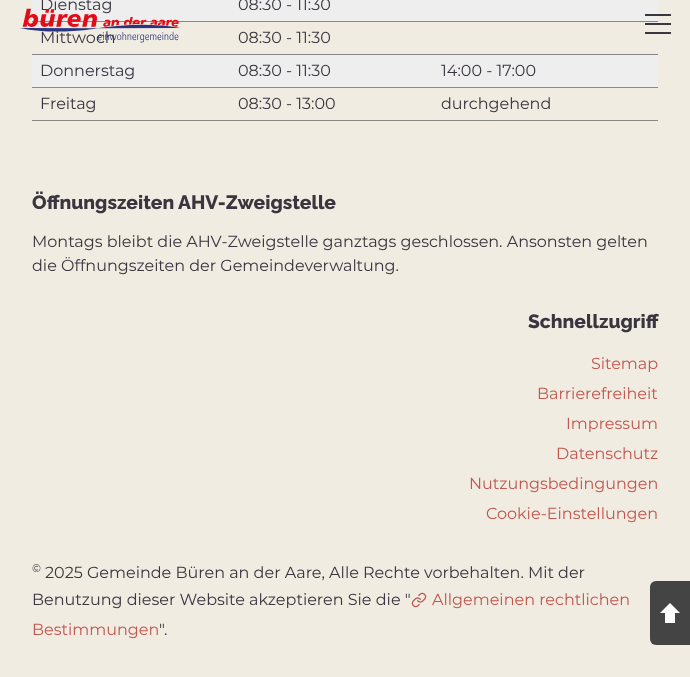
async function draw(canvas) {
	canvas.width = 690;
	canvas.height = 677;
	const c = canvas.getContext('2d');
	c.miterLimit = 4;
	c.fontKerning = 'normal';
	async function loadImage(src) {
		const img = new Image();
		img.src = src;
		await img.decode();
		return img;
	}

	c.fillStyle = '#f1ece1';
	c.fillRect(0, 0, 690, 677);
	c.fillStyle = '#eee';
	c.fillRect(32, 0, 626, 21);
	c.fillStyle = '#888';
	c.fillRect(32, 21, 626, 1);
	c.font = '16px Montserrat';
	c.fillStyle = '#3a353f';
	c.fillText('Dienstag', 40, 10);
	c.fillText('08:30 - 11:30', 238, 10);
	c.fillStyle = '#888';
	c.fillRect(32, 54, 626, 1);
	c.fillStyle = '#3a353f';
	c.fillText('Mittwoch', 40, 43);
	c.fillText('08:30 - 11:30', 238, 43);
	c.fillStyle = '#eee';
	c.fillRect(32, 55, 626, 32);
	c.fillStyle = '#888';
	c.fillRect(32, 87, 626, 1);
	c.fillStyle = '#3a353f';
	for (const [text, x, y] of [
		['Donnerstag', 40, 76],
		['08:30 - 11:30', 238, 76],
		['14:00 - 17:00', 441, 76],
	]) {
		c.fillText(text, x, y);
	}
	c.fillStyle = '#888';
	c.fillRect(32, 120, 626, 1);
	c.fillStyle = '#3a353f';
	for (const [text, x, y] of [
		['Freitag', 40, 109],
		['08:30 - 13:00', 238, 109],
		['durchgehend', 441, 109],
	]) {
		c.fillText(text, x, y);
	}
	c.font = '800 19.25px Raleway';
	c.fillText('Öffnungszeiten AHV-Zweigstelle', 32, 209);
	c.font = '16px Montserrat';
	c.fillText('Montags bleibt die AHV-Zweigstelle ganztags geschlossen. Ansonsten gelten', 32, 247);
	c.fillText('die Öffnungszeiten der Gemeindeverwaltung.', 32, 271);
	c.font = '800 19.25px Raleway';
	c.fillText('Schnellzugriff', 528, 328);
	c.font = '16px Montserrat';
	c.fillStyle = '#c05850';
	for (const [text, x, y] of [
		['Sitemap', 591, 369],
		['Barrierefreiheit', 537, 399],
		['Impressum', 566, 429],
		['Datenschutz', 556, 459],
		['Nutzungsbedingungen', 469, 489],
		['Cookie-Einstellungen', 486, 519],
	]) {
		c.fillText(text, x, y);
	}
	c.font = '11px Montserrat';
	c.fillStyle = '#3a353f';
	c.fillText('©', 32, 572);
	c.font = '16px Montserrat';
	c.fillText('2025 Gemeinde Büren an der Aare, Alle Rechte vorbehalten. Mit der', 45, 578);
	c.fillText('Benutzung dieser Website akzeptieren Sie die "', 32, 605);
	c.drawImage(await loadImage('img1.png'), 411, 592, 16, 16);
	c.fillStyle = '#c05850';
	c.fillText('Allgemeinen rechtlichen', 432, 605);
	c.fillText('Bestimmungen', 32, 635);
	c.fillStyle = '#3a353f';
	c.fillText('".', 159, 635);
	c.drawImage(await loadImage('img2.png'), 20, 8, 161, 35);
	for (const [x, y, w, h, color] of [
		[645, 14, 26, 2, '#3a353f'],
		[645, 23, 26, 2, '#3a353f'],
		[645, 32, 26, 2, '#3a353f'],
	]) {
		c.fillStyle = color;
		c.fillRect(x, y, w, h);
	}
	c.fillStyle = '#444';
	c.beginPath();
	c.roundRect(650, 581, 40, 64, [6, 0, 0, 6]);
	c.fill();
	c.fillStyle = '#fff';
	c.beginPath();
	c.moveTo(680, 613);
	c.lineTo(660, 613);
	c.lineTo(670, 603);
	c.closePath();
	c.fill();
	c.fillRect(665, 613, 10, 10);
}

draw(document.querySelector('canvas'));
